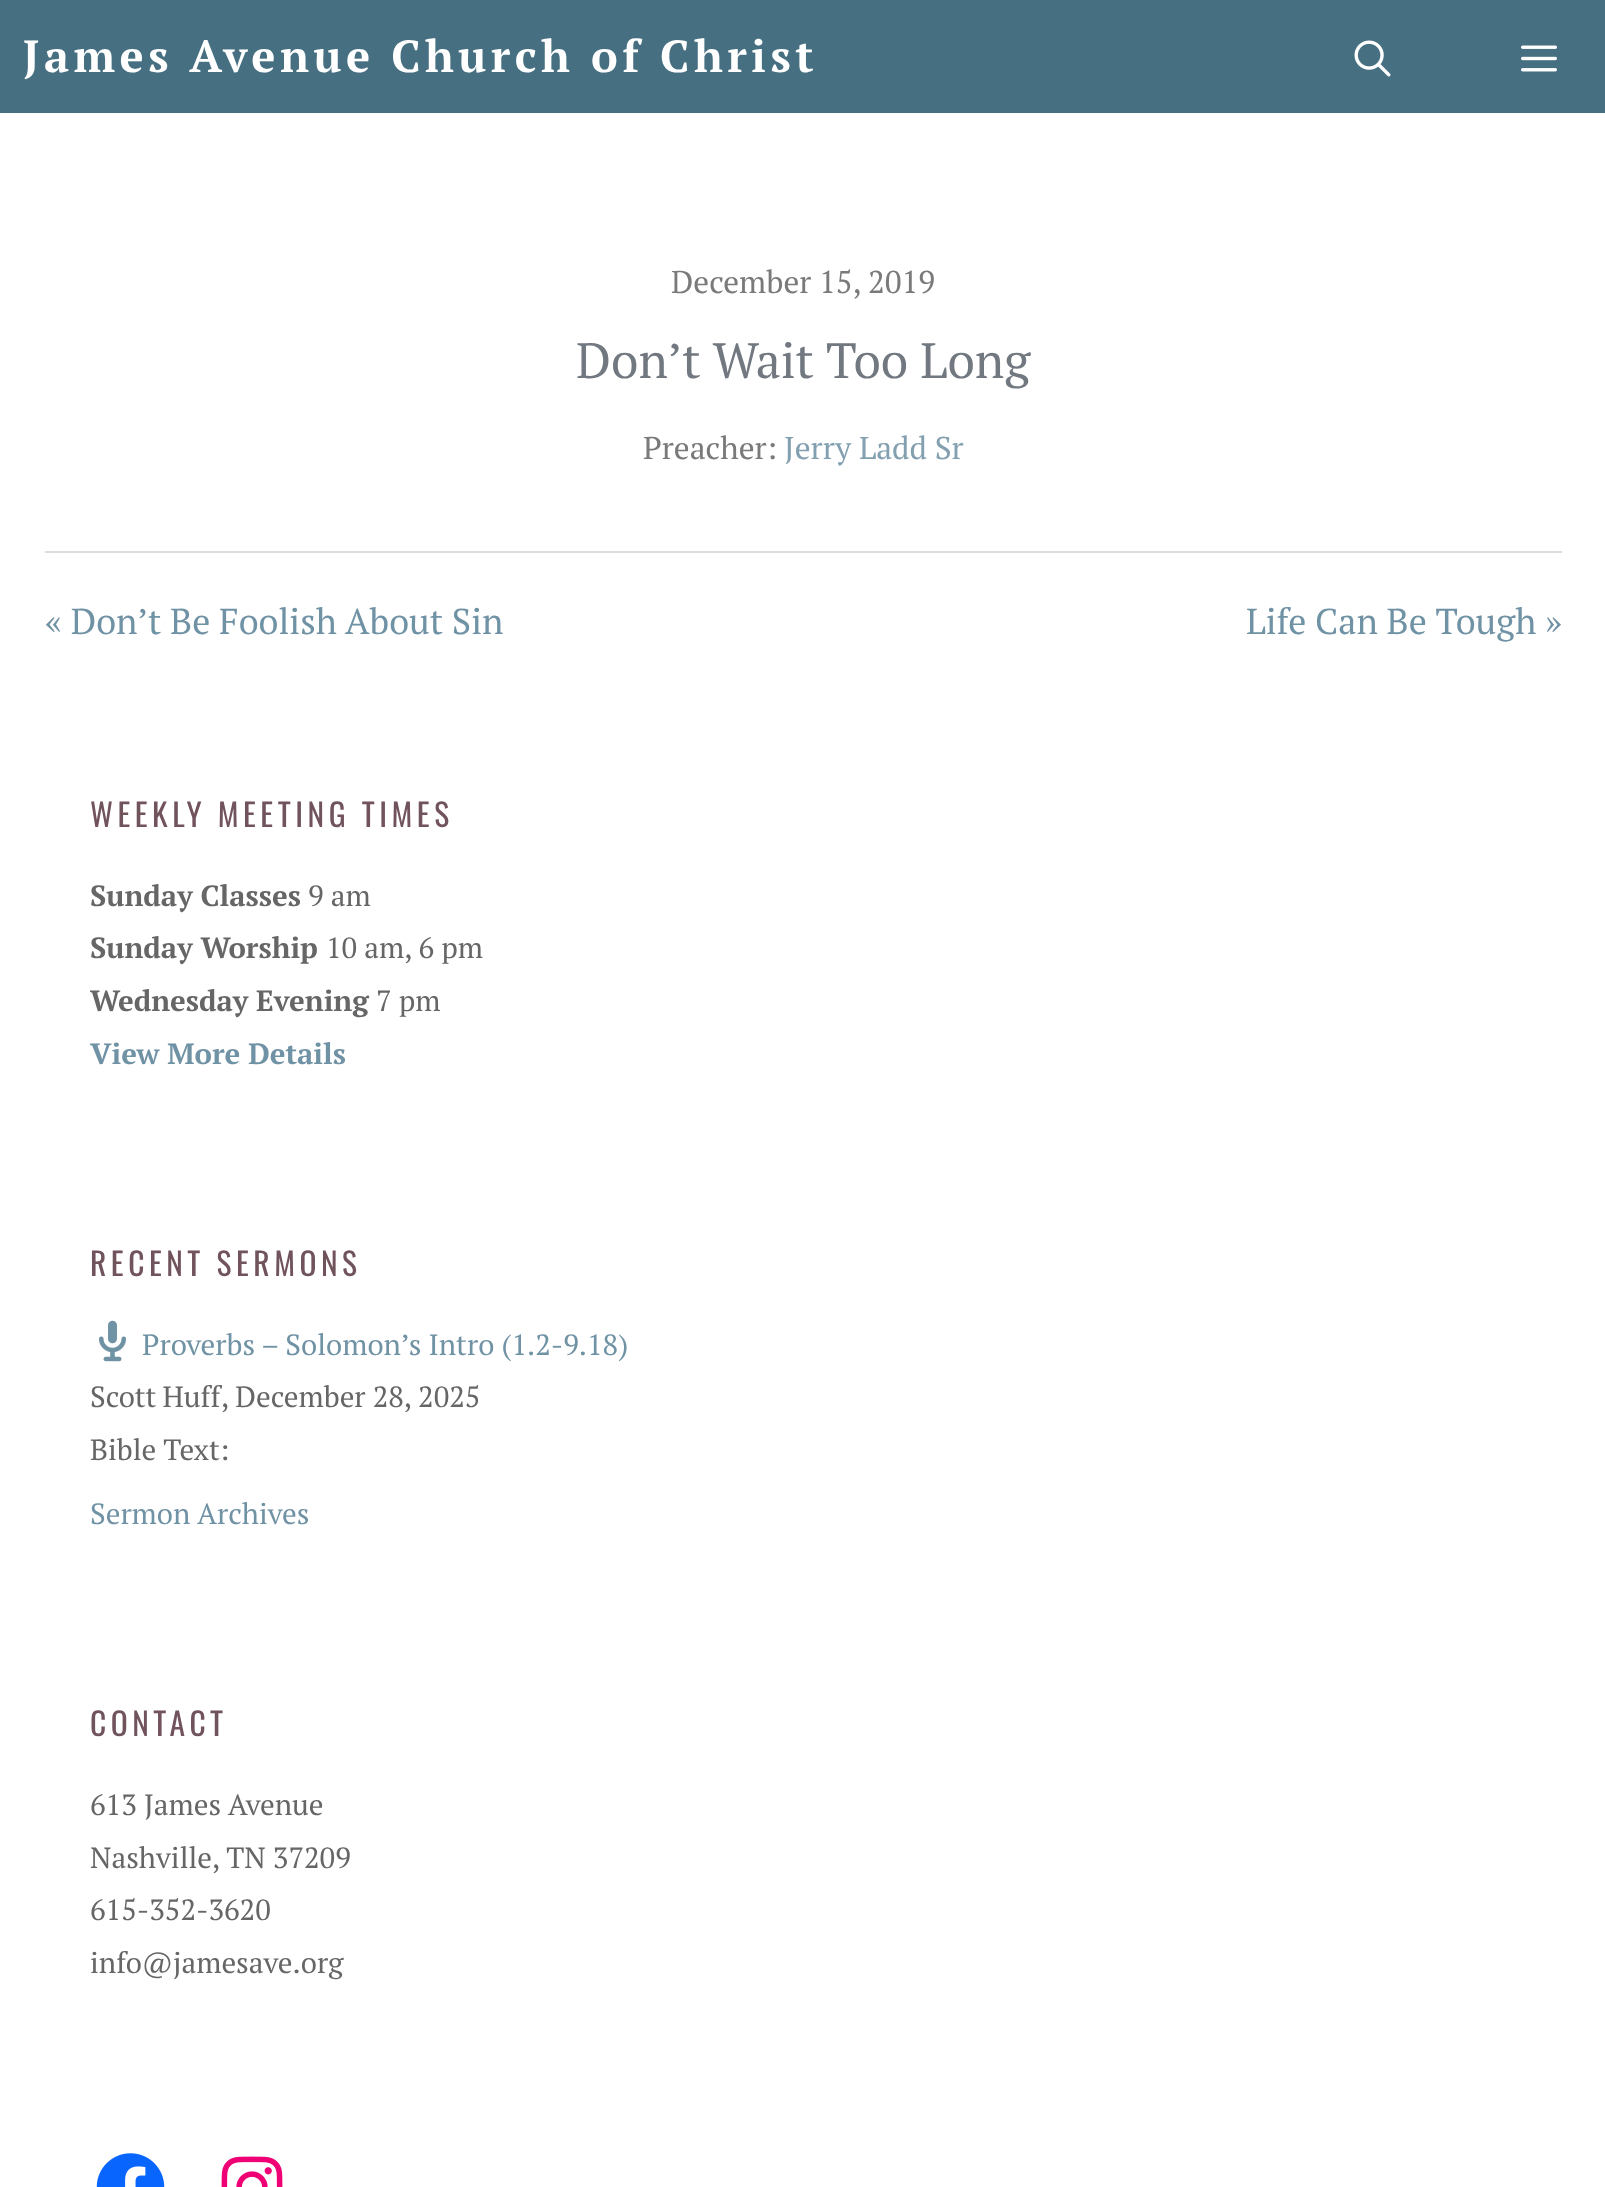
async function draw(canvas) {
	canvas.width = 1605;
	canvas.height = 2187;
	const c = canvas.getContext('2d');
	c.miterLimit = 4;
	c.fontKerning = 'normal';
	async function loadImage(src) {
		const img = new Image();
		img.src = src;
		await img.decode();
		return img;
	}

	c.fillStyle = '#467082';
	c.fillRect(0, 0, 1605, 2187);
	c.letterSpacing = '4.5px';
	c.font = 'bold 45px PT Serif';
	c.fillStyle = '#fff';
	c.fillText('James Avenue Church of Christ', 23, 72);
	c.drawImage(await loadImage('img1.png'), 1354, 40, 37, 37);
	c.drawImage(await loadImage('img2.png'), 1521, 45, 36, 27);
	c.fillRect(0, 113, 1605, 2074);
	c.letterSpacing = '0px';
	c.font = '31.5px PT Serif';
	c.fillStyle = '#7a7a7a';
	c.fillText('December 15, 2019', 671, 293);
	c.font = '49.5px PT Serif';
	c.fillStyle = '#717880';
	c.fillText('Don’t Wait Too Long', 576, 378);
	c.font = '31.5px PT Serif';
	c.fillStyle = '#7a7a7a';
	c.fillText('Preacher:', 643, 459);
	c.fillStyle = '#83a0b1';
	c.fillText('Jerry Ladd Sr', 784, 459);
	c.fillStyle = '#ddd';
	c.fillRect(45, 551, 1517, 2);
	c.font = '36px PT Serif';
	c.fillStyle = '#7092a5';
	c.fillText('« Don’t Be Foolish About Sin', 45, 634);
	c.fillText('Life Can Be Tough »', 1246, 634);
	c.letterSpacing = '4.5px';
	c.font = '31.5px Oswald';
	c.fillStyle = '#71535c';
	c.fillText('WEEKLY MEETING TIMES', 90, 827);
	c.letterSpacing = '0px';
	c.font = 'bold 29.25px PT Serif';
	c.fillStyle = '#666';
	c.fillText('Sunday Classes', 90, 906);
	c.font = '29.25px PT Serif';
	c.fillText('9 am', 308, 906);
	c.font = 'bold 29.25px PT Serif';
	c.fillText('Sunday Worship', 90, 958);
	c.font = '29.25px PT Serif';
	c.fillText('10 am, 6 pm', 326, 958);
	c.font = 'bold 29.25px PT Serif';
	c.fillText('Wednesday Evening', 90, 1011);
	c.font = '29.25px PT Serif';
	c.fillText('7 pm', 376, 1011);
	c.font = 'bold 29.25px PT Serif';
	c.fillStyle = '#7092a5';
	c.fillText('View More Details', 90, 1064);
	c.letterSpacing = '4.5px';
	c.font = '31.5px Oswald';
	c.fillStyle = '#71535c';
	c.fillText('RECENT SERMONS', 90, 1276);
	c.drawImage(await loadImage('img3.png'), 99, 1320, 27, 42);
	c.letterSpacing = '0px';
	c.font = '29.25px PT Serif';
	c.fillStyle = '#7092a5';
	c.fillText('Proverbs – Solomon’s Intro (1.2-9.18)', 142, 1355);
	c.wordSpacing = '-1px';
	c.fillStyle = '#666';
	c.fillText('Scott Huff', 90, 1407);
	c.wordSpacing = '0px';
	c.fillText(', December 28, 2025', 221, 1407);
	c.fillText('Bible Text:', 90, 1460);
	c.fillStyle = '#7092a5';
	c.fillText('Sermon Archives', 90, 1524);
	c.letterSpacing = '4.5px';
	c.font = '31.5px Oswald';
	c.fillStyle = '#71535c';
	c.fillText('CONTACT', 90, 1736);
	c.letterSpacing = '0px';
	c.font = '29.25px PT Serif';
	c.fillStyle = '#666';
	for (const [text, x, y] of [
		['613 James Avenue', 90, 1815],
		['Nashville, TN 37209', 90, 1868],
		['615-352-3620', 90, 1920],
		['info@jamesave.org', 90, 1973],
	]) {
		c.fillText(text, x, y);
	}
	c.drawImage(await loadImage('img4.png'), 96, 2153, 69, 34);
	c.drawImage(await loadImage('img5.png'), 221, 2156, 62, 31);
}

draw(document.querySelector('canvas'));
